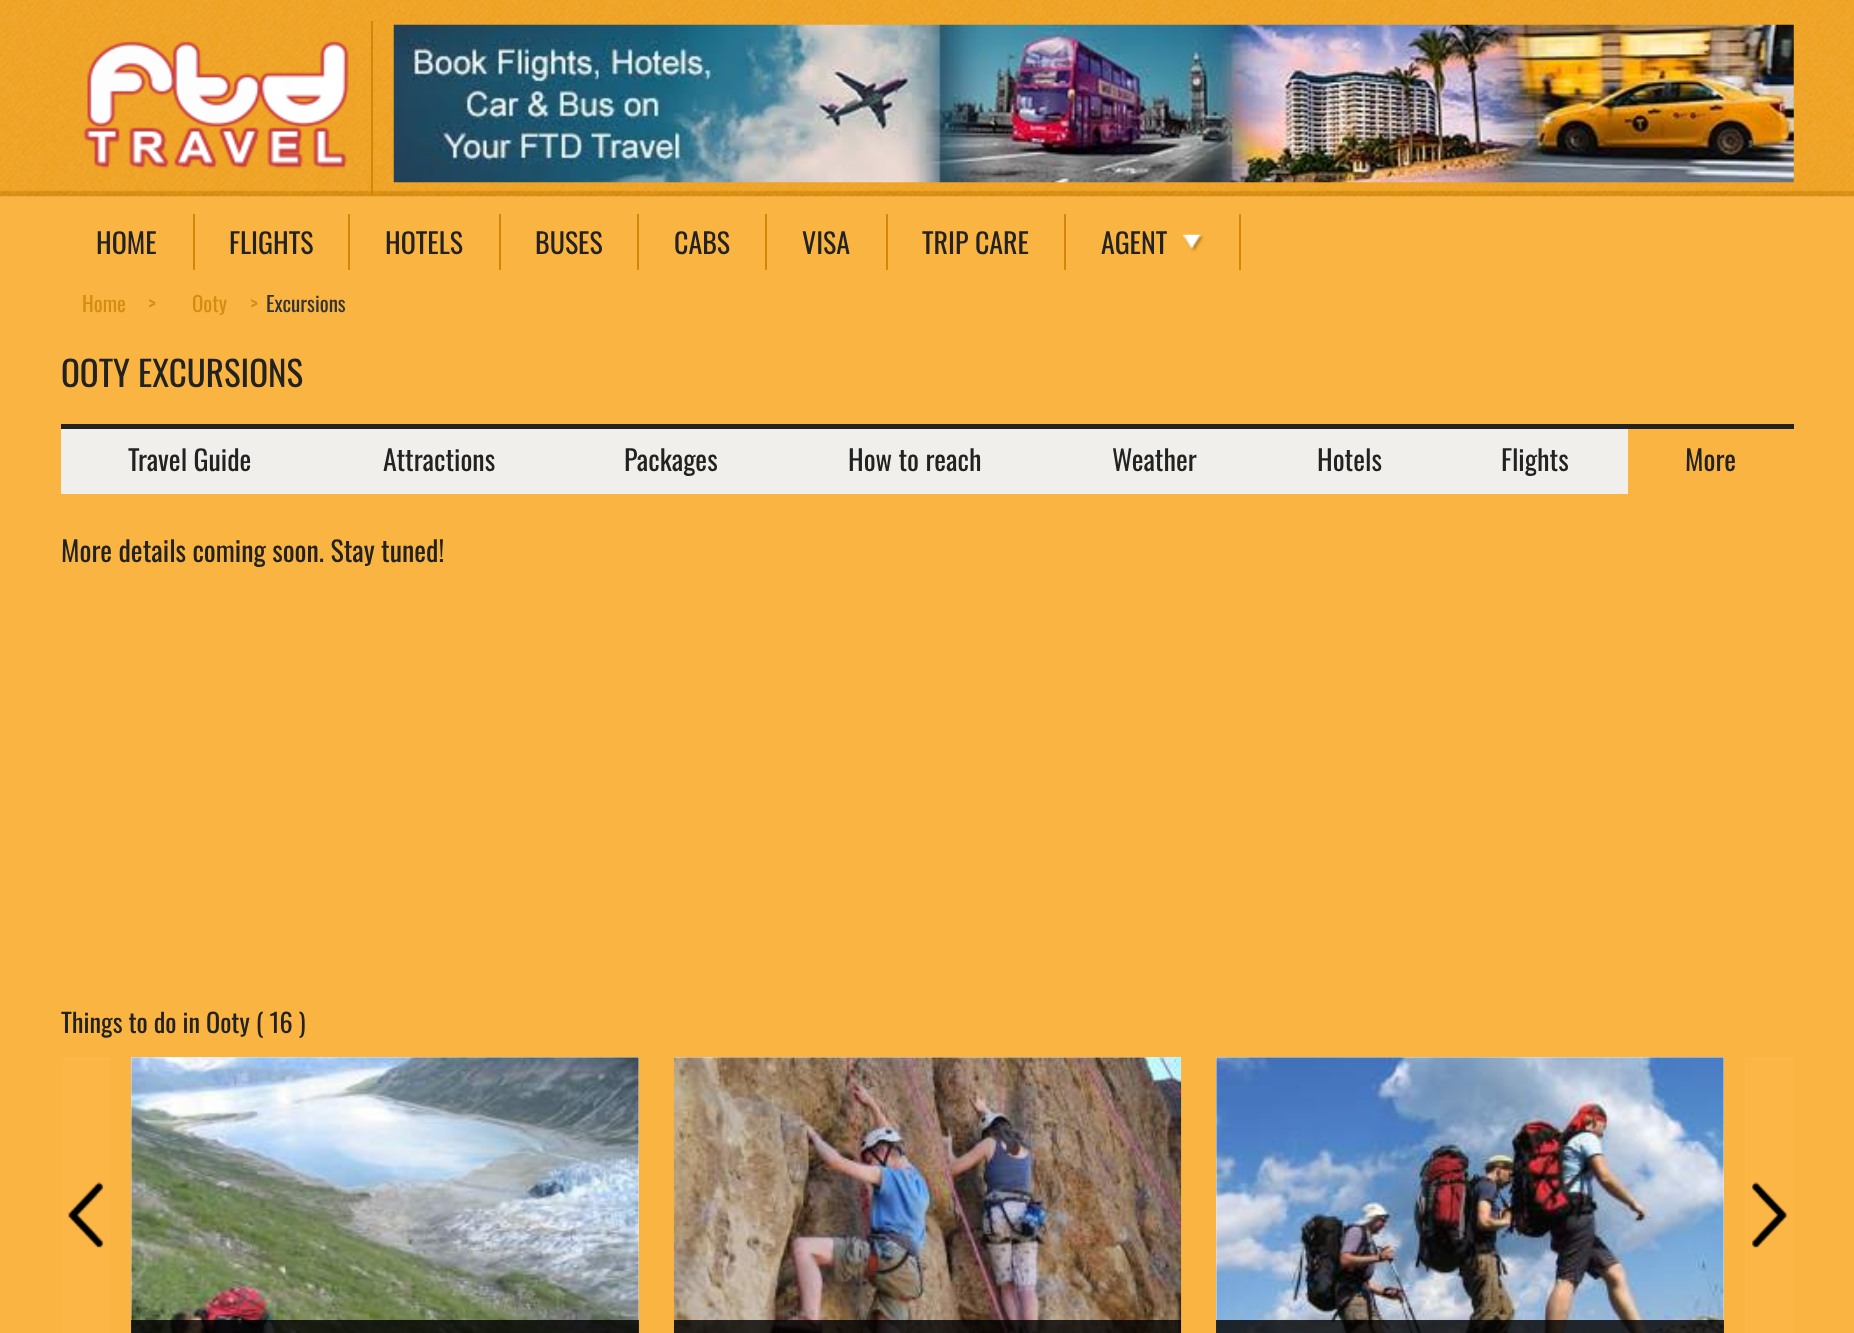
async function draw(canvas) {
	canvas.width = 1854;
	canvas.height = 1333;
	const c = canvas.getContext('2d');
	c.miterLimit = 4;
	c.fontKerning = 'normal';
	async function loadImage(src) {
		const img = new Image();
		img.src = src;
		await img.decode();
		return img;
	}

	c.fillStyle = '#fab441';
	c.fillRect(0, 0, 1854, 1333);
	c.drawImage(await loadImage('img1.png'), 0, 0, 1854, 197);
	c.fillStyle = '#d38607';
	c.fillRect(371, 21, 2, 175);
	c.drawImage(await loadImage('img2.png'), 83, 40, 266, 129);
	c.drawImage(await loadImage('img3.png'), 393, 24, 1401, 159);
	c.fillRect(193, 214, 2, 56);
	c.font = '28px Oswald';
	c.fillStyle = '#222';
	c.fillText('HOME', 96, 254);
	c.fillStyle = '#d38607';
	c.fillRect(348, 214, 2, 56);
	c.fillStyle = '#222';
	c.fillText('FLIGHTS', 229, 254);
	c.fillStyle = '#d38607';
	c.fillRect(499, 214, 2, 56);
	c.fillStyle = '#222';
	c.fillText('HOTELS', 385, 254);
	c.fillStyle = '#d38607';
	c.fillRect(637, 214, 2, 56);
	c.fillStyle = '#222';
	c.fillText('BUSES', 535, 254);
	c.fillStyle = '#d38607';
	c.fillRect(765, 214, 2, 56);
	c.fillStyle = '#222';
	c.fillText('CABS', 674, 254);
	c.fillStyle = '#d38607';
	c.fillRect(886, 214, 2, 56);
	c.fillStyle = '#222';
	c.fillText('VISA', 802, 254);
	c.fillStyle = '#d38607';
	c.fillRect(1064, 214, 2, 56);
	c.fillStyle = '#222';
	c.fillText('TRIP CARE', 922, 254);
	c.fillStyle = '#d38607';
	c.fillRect(1239, 214, 2, 56);
	c.drawImage(await loadImage('img4.png'), 1183, 234, 21, 18);
	c.fillStyle = '#222';
	c.fillText('AGENT', 1101, 254);
	c.font = '21px Oswald';
	c.fillStyle = '#d48c14';
	for (const [text, x, y] of [
		['Home', 82, 312],
		['>', 148, 312],
		['Ooty', 192, 312],
		['>', 250, 312],
	]) {
		c.fillText(text, x, y);
	}
	c.fillStyle = '#333';
	c.fillText('Excursions', 266, 312);
	c.font = '35px Oswald';
	c.fillStyle = '#222';
	c.fillText('OOTY EXCURSIONS', 61, 387);
	c.fillStyle = '#f0efec';
	c.fillRect(61, 429, 1567, 65);
	c.fillStyle = '#222';
	c.fillRect(61, 424, 1733, 5);
	c.font = '28px Oswald';
	for (const [text, x, y] of [
		['Travel Guide', 128, 471],
		['Attractions', 383, 471],
		['Packages', 624, 471],
		['How to reach', 848, 471],
		['Weather', 1112, 471],
		['Hotels', 1317, 471],
		['Flights', 1501, 471],
		['More', 1685, 471],
		['More details coming soon. Stay tuned!', 61, 562],
	]) {
		c.fillText(text, x, y);
	}
	c.font = '26.25px Oswald';
	c.fillText('Things to do in Ooty ( 16 )', 61, 1033);
	c.fillStyle = '#fcb646';
	c.fillRect(61, 1057, 49, 276);
	c.drawImage(await loadImage('img5.png'), 68, 1182, 36, 66);
	c.fillStyle = '#f0efec';
	c.fillRect(131, 1057, 508, 276);
	c.drawImage(await loadImage('img6.png'), 131, 1057, 508, 276);
	c.fillStyle = '#000000cc';
	c.fillRect(131, 1320, 508, 13);
	c.fillStyle = '#f0efec';
	c.fillRect(674, 1057, 507, 1);
	c.drawImage(await loadImage('img7.png'), 673, 1057, 509, 276);
	c.fillStyle = '#000000cc';
	c.fillRect(674, 1320, 507, 13);
	c.fillStyle = '#f0efec';
	c.fillRect(1216, 1057, 508, 276);
	c.drawImage(await loadImage('img8.png'), 1216, 1057, 508, 276);
	c.fillStyle = '#000000cc';
	c.fillRect(1216, 1320, 508, 13);
	c.fillStyle = '#fcb646';
	c.fillRect(1745, 1057, 49, 276);
	c.drawImage(await loadImage('img9.png'), 1752, 1182, 35, 66);
}

draw(document.querySelector('canvas'));
